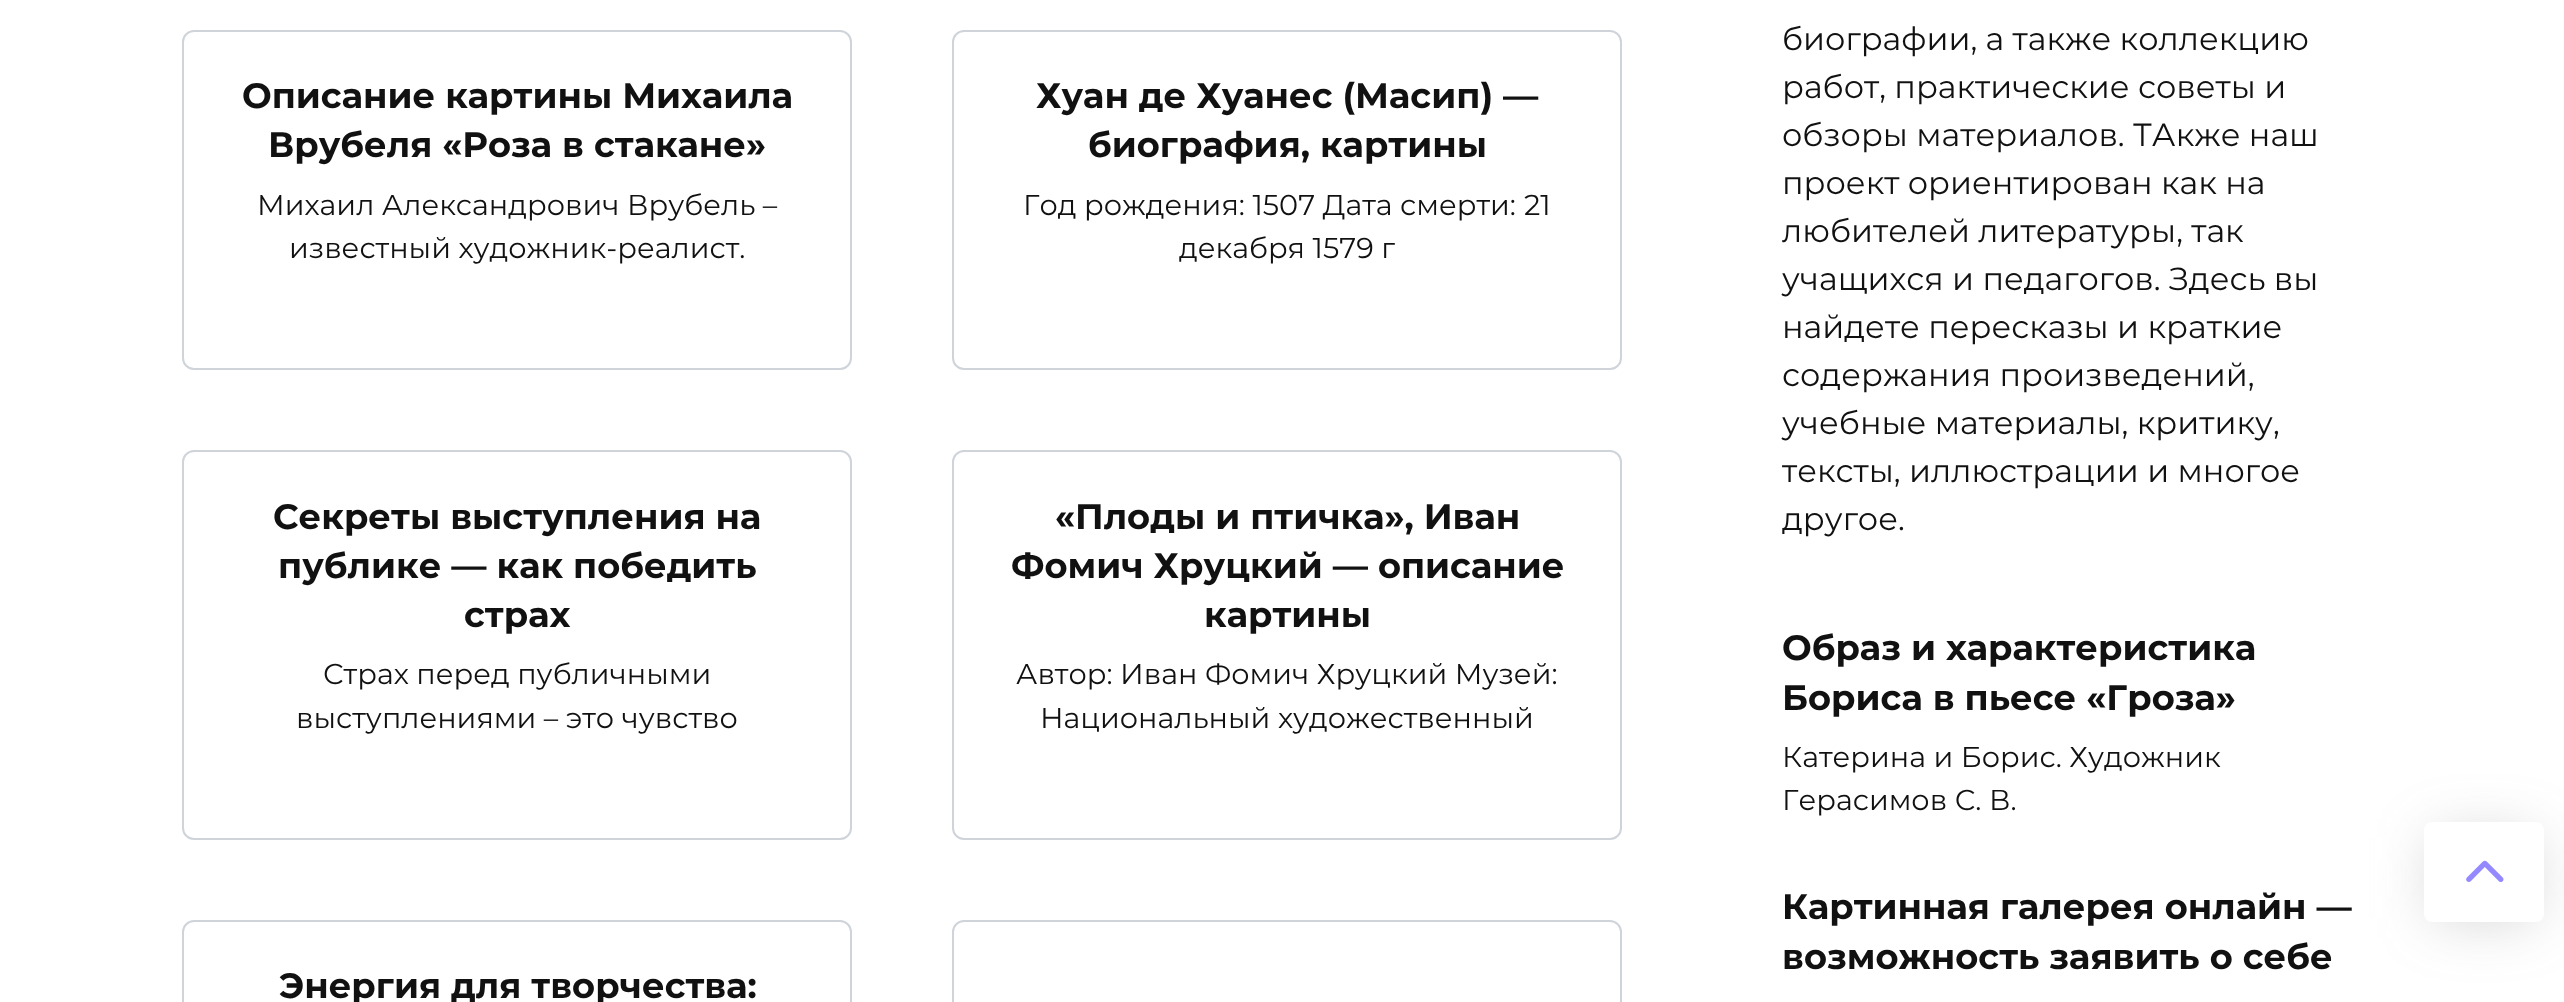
async function draw(canvas) {
	canvas.width = 2564;
	canvas.height = 1002;
	const c = canvas.getContext('2d');
	c.miterLimit = 4;
	c.fontKerning = 'none';

	c.fillStyle = '#fff';
	c.fillRect(0, 0, 2564, 1002);
	c.beginPath();
	c.roundRect(183, 31, 668, 338, 11);
	c.strokeStyle = '#ced4da';
	c.lineWidth = 2;
	c.stroke();
	c.font = 'bold 35.25px Montserrat';
	c.fillStyle = '#111';
	c.fillText('Описание картины Михаила', 242, 108);
	c.fillText('Врубеля «Роза в стакане»', 268, 157);
	c.font = '28.75px Montserrat';
	c.fillText('Михаил Александрович Врубель –', 257, 215);
	c.fillText('известный художник-реалист.', 289, 258);
	c.beginPath();
	c.roundRect(953, 31, 668, 338, 11);
	c.stroke();
	c.font = 'bold 35.25px Montserrat';
	c.fillText('Хуан де Хуанес (Масип) —', 1036, 108);
	c.fillText('биография, картины', 1088, 157);
	c.font = '28.75px Montserrat';
	c.fillText('Год рождения: 1507 Дата смерти:', 1023, 215);
	c.fillText('21', 1524, 215);
	c.fillText('декабря 1579 г', 1179, 258);
	c.beginPath();
	c.roundRect(183, 451, 668, 388, 11);
	c.stroke();
	c.font = 'bold 35.25px Montserrat';
	for (const [text, x, y] of [
		['Секреты выступления на', 273, 529],
		['публике — как победить', 278, 578],
		['страх', 464, 627],
	]) {
		c.fillText(text, x, y);
	}
	c.font = '28.75px Montserrat';
	c.fillText('Страх перед публичными', 323, 684);
	c.fillText('выступлениями – это чувство', 296, 728);
	c.beginPath();
	c.roundRect(953, 451, 668, 388, 11);
	c.stroke();
	c.font = 'bold 35.25px Montserrat';
	for (const [text, x, y] of [
		['«Плоды и птичка», Иван', 1055, 529],
		['Фомич Хруцкий — описание', 1011, 578],
		['картины', 1204, 627],
	]) {
		c.fillText(text, x, y);
	}
	c.font = '28.75px Montserrat';
	c.fillText('Автор: Иван Фомич Хруцкий Музей:', 1016, 684);
	c.fillText('Национальный художественный', 1040, 728);
	c.beginPath();
	c.roundRect(183, 921, 668, 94, 11);
	c.stroke();
	c.font = 'bold 35.25px Montserrat';
	c.fillText('Энергия для творчества:', 279, 998);
	c.beginPath();
	c.roundRect(953, 921, 668, 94, 11);
	c.stroke();
	c.font = '32px Montserrat';
	for (const [text, x, y] of [
		['биографии, а также коллекцию', 1782, 50],
		['работ, практические советы и', 1782, 98],
		['обзоры материалов. ТАкже наш', 1782, 146],
		['проект ориентирован как на', 1782, 194],
		['любителей литературы, так', 1782, 242],
		['учащихся и педагогов. Здесь вы', 1782, 290],
		['найдете пересказы и краткие', 1782, 338],
		['содержания произведений,', 1782, 386],
		['учебные материалы, критику,', 1782, 434],
		['тексты, иллюстрации и многое', 1782, 482],
		['другое.', 1782, 530],
	]) {
		c.fillText(text, x, y);
	}
	c.font = 'bold 35.25px Montserrat';
	c.fillText('Образ и характеристика', 1782, 660);
	c.fillText('Бориса в пьесе «Гроза»', 1782, 710);
	c.font = '28.75px Montserrat';
	c.fillText('Катерина и Борис. Художник', 1782, 767);
	c.fillText('Герасимов С. В.', 1782, 810);
	c.font = 'bold 35.25px Montserrat';
	c.fillText('Картинная галерея онлайн —', 1782, 919);
	c.fillText('возможность заявить о себе', 1782, 969);
	c.fillStyle = '#6666664d';
	c.filter = 'blur(30px)';
	c.beginPath();
	c.rect(2434, 838, 100, 80);
	c.fill();
	c.filter = 'none';
	c.fillStyle = '#fff';
	c.beginPath();
	c.roundRect(2424, 822, 120, 100, 8);
	c.fill();
	c.font = '64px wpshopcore';
	c.fillStyle = '#9489fe';
	c.fillText('︿', 2452, 898);
}

draw(document.querySelector('canvas'));
